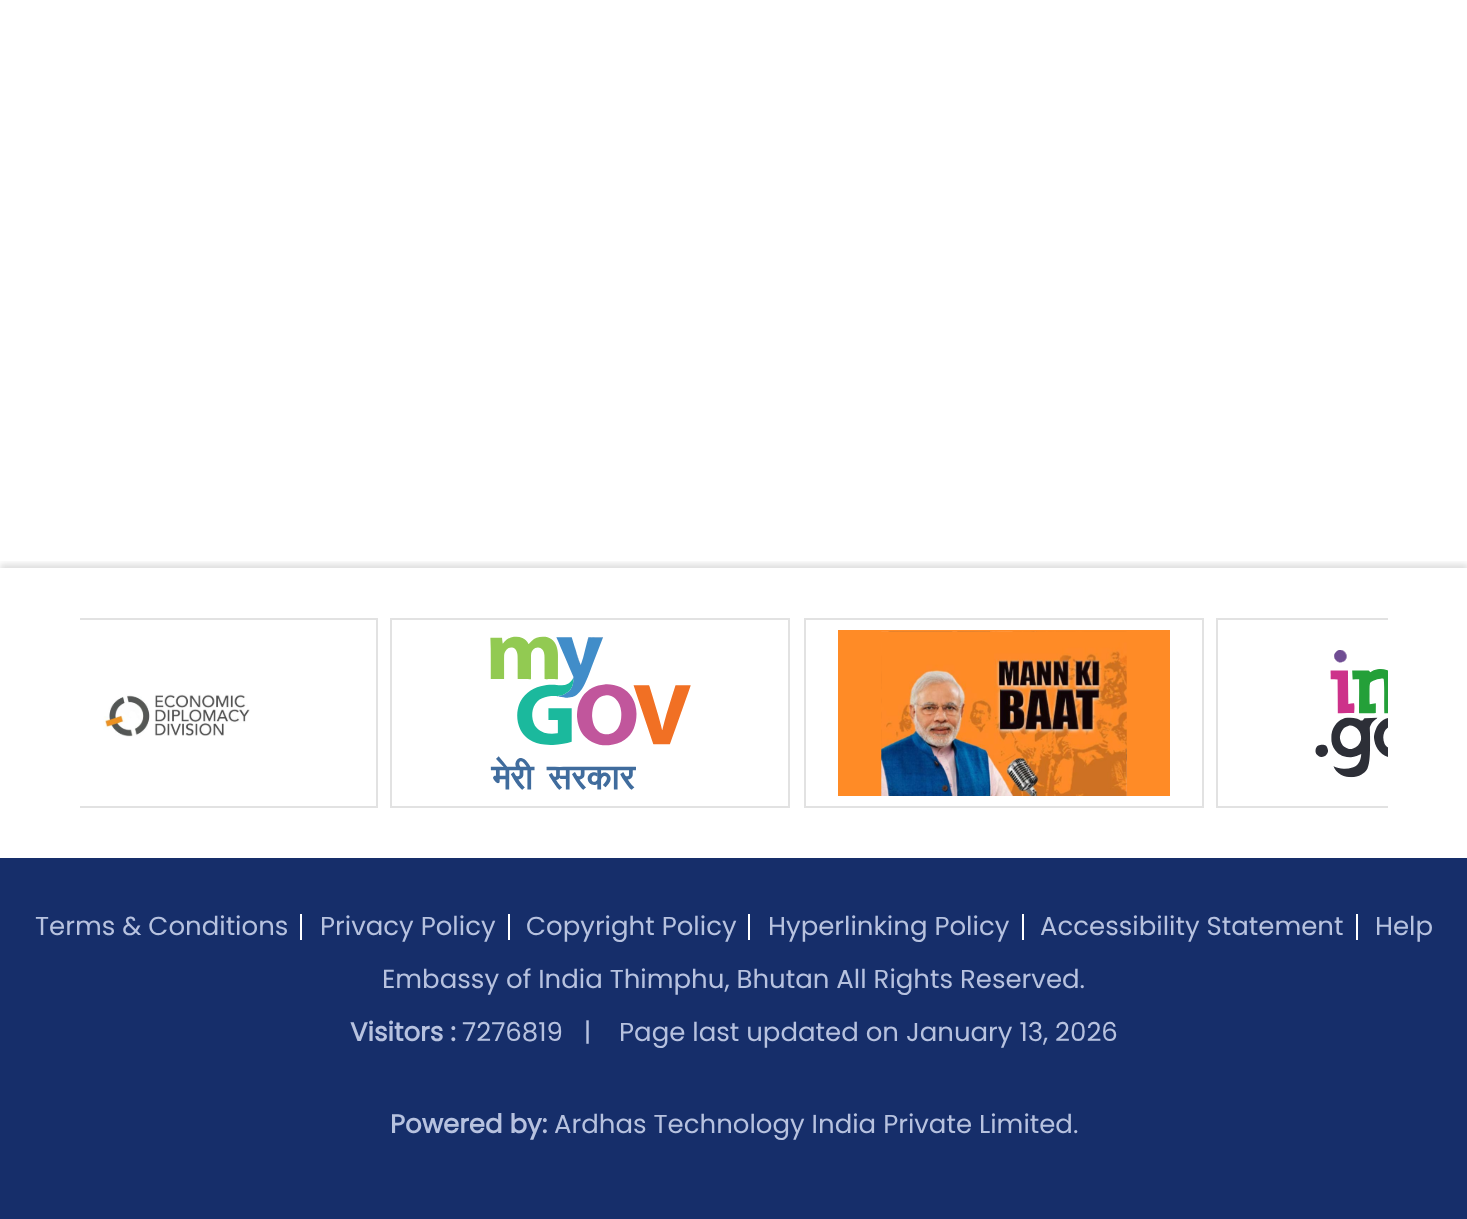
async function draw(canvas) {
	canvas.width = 1467;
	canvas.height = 1219;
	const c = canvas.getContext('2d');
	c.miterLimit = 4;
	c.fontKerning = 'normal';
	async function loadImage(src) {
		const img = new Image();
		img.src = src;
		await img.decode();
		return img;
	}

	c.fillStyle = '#fff';
	c.fillRect(0, 0, 1467, 1219);
	c.save();
	c.beginPath();
	c.rect(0, 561, 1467, 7);
	c.clip();
	c.fillStyle = '#00000021';
	c.filter = 'blur(3px)';
	c.beginPath();
	c.rect(0, 564, 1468, 290);
	c.fill();
	c.filter = 'none';
	c.restore();
	c.save();
	c.beginPath();
	c.rect(80, 618, 1308, 190);
	c.clip();
	c.strokeStyle = '#e2e2e2';
	c.lineWidth = 2;
	c.strokeRect(-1, 619, 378, 188);
	c.restore();
	c.strokeStyle = '#e2e2e2';
	c.lineWidth = 2;
	c.strokeRect(391, 619, 398, 188);
	c.strokeRect(805, 619, 398, 188);
	c.save();
	c.beginPath();
	c.rect(80, 618, 1308, 190);
	c.clip();
	c.strokeRect(1217, 619, 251, 188);
	c.restore();
	c.drawImage(await loadImage('img1.png'), 103, 694, 147, 43);
	c.drawImage(await loadImage('img2.png'), 490, 636, 201, 154);
	c.drawImage(await loadImage('img3.png'), 838, 630, 332, 166);
	c.drawImage(await loadImage('img4.png'), 1315, 650, 73, 128);
	c.fillStyle = '#162e6a';
	c.fillRect(0, 858, 1467, 361);
	c.font = '26px Poppins';
	c.fillStyle = '#b7c2df';
	c.fillText('Terms & Conditions', 35, 935);
	c.fillStyle = '#fff';
	c.fillRect(300, 914, 2, 26);
	c.fillStyle = '#b7c2df';
	c.fillText('Privacy Policy', 320, 935);
	c.fillStyle = '#fff';
	c.fillRect(508, 914, 2, 26);
	c.fillStyle = '#b7c2df';
	c.fillText('Copyright Policy', 526, 935);
	c.fillStyle = '#fff';
	c.fillRect(748, 914, 2, 26);
	c.fillStyle = '#b7c2df';
	c.fillText('Hyperlinking Policy', 768, 935);
	c.fillStyle = '#fff';
	c.fillRect(1022, 914, 2, 26);
	c.fillStyle = '#b7c2df';
	c.fillText('Accessibility Statement', 1040, 935);
	c.fillStyle = '#fff';
	c.fillRect(1356, 914, 2, 26);
	c.fillStyle = '#b7c2df';
	c.fillText('Help', 1375, 935);
	c.fillText('Embassy of India Thimphu, Bhutan All Rights Reserved.', 382, 988);
	c.font = 'bold 26px Poppins';
	c.fillText('Visitors :', 350, 1041);
	c.font = '26px Poppins';
	c.fillText('7276819   |', 462, 1041);
	c.fillText('Page last updated on January 13, 2026', 619, 1041);
	c.font = 'bold 26px Poppins';
	c.fillText('Powered by:', 390, 1133);
	c.font = '26px Poppins';
	c.fillText('Ardhas Technology India Private Limited.', 554, 1133);
}

draw(document.querySelector('canvas'));
